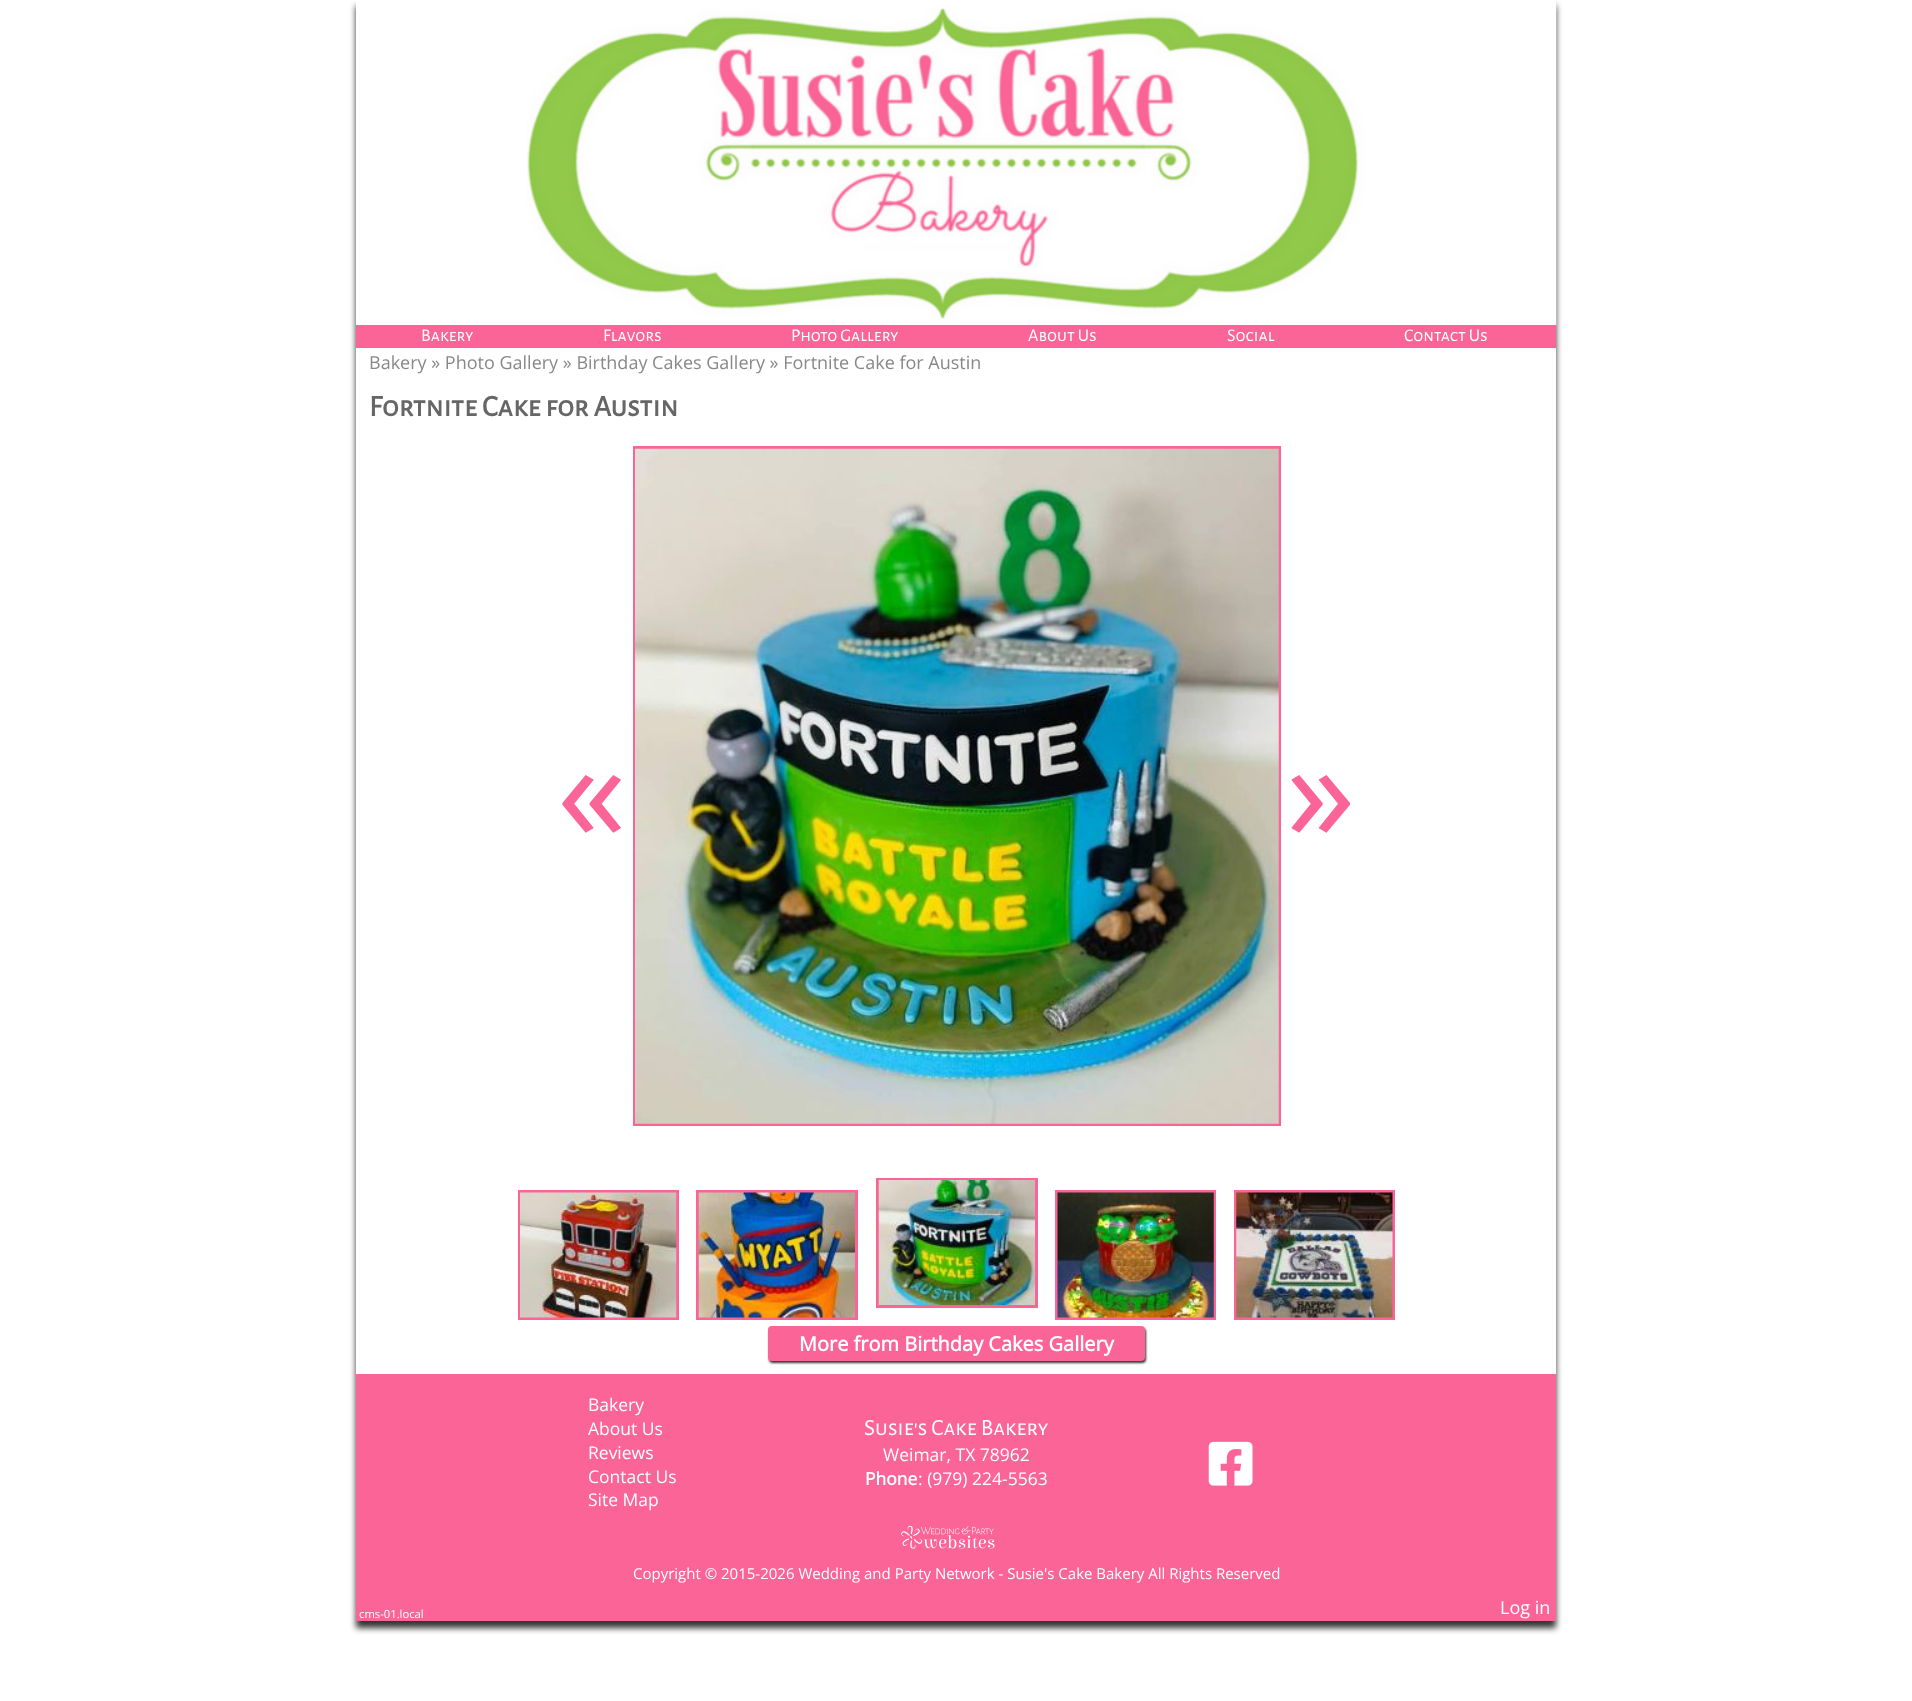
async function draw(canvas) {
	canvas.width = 1912;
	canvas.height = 1701;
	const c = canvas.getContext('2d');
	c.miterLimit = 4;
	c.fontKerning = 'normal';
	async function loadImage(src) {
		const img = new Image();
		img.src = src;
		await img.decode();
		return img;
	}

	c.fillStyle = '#fff';
	c.fillRect(0, 0, 1912, 1701);
	c.fillStyle = '#333';
	c.filter = 'blur(3px)';
	c.beginPath();
	c.rect(356, 6, 1200, 1622);
	c.fill();
	c.filter = 'none';
	c.fillStyle = '#fff';
	c.fillRect(356, 0, 1200, 1374);
	c.drawImage(await loadImage('img1.png'), 527, 4, 1030, 321);
	c.fillStyle = '#fa6497';
	c.fillRect(356, 325, 1200, 23);
	c.font = '18px Alegreya Sans SC';
	c.fillStyle = '#fff';
	for (const [text, x, y] of [
		['Bakery', 421, 341],
		['Flavors', 603, 341],
		['Photo Gallery', 791, 341],
		['About Us', 1028, 341],
		['Social', 1227, 341],
		['Contact Us', 1404, 341],
	]) {
		c.fillText(text, x, y);
	}
	c.font = '18px Open Sans';
	c.fillStyle = '#888';
	c.fillText('Bakery » Photo Gallery » Birthday Cakes Gallery » Fortnite Cake for Austin', 369, 369);
	c.font = 'bold 30px Alegreya Sans SC';
	c.fillStyle = '#666';
	c.fillText('Fortnite Cake for Austin', 369, 416);
	c.strokeStyle = '#fa6497';
	c.lineWidth = 3;
	c.strokeRect(634.5, 447.5, 645, 677);
	c.font = '140px Open Sans';
	c.fillStyle = '#fa6497';
	c.fillText('«', 557, 841);
	c.drawImage(await loadImage('img2.png'), 635, 448, 644, 676);
	c.fillText('»', 1286, 841);
	c.strokeRect(519.5, 1191.5, 158, 127);
	c.drawImage(await loadImage('img3.png'), 520, 1192, 157, 126);
	c.strokeRect(697.5, 1191.5, 159, 127);
	c.drawImage(await loadImage('img4.png'), 698, 1192, 157, 126);
	c.strokeRect(877.5, 1179.5, 159, 127);
	c.drawImage(await loadImage('img5.png'), 878, 1180, 157, 125);
	c.strokeRect(1056.5, 1191.5, 158, 127);
	c.drawImage(await loadImage('img6.png'), 1057, 1192, 157, 126);
	c.strokeRect(1235.5, 1191.5, 158, 127);
	c.drawImage(await loadImage('img7.png'), 1236, 1192, 157, 126);
	c.fillStyle = '#333';
	c.filter = 'blur(1px)';
	c.beginPath();
	c.roundRect(769, 1328, 377, 35, 4);
	c.fill();
	c.filter = 'none';
	c.fillStyle = '#fa6497';
	c.beginPath();
	c.roundRect(768, 1326, 377, 35, 4);
	c.fill();
	c.font = 'bold 20px Open Sans';
	c.fillStyle = '#fff';
	c.fillText('More from Birthday Cakes Gallery', 799, 1351);
	c.fillStyle = '#fa6497';
	c.fillRect(356, 1374, 1200, 247);
	c.font = '17.5px Open Sans';
	c.fillStyle = '#fff';
	for (const [text, x, y] of [
		['Bakery', 588, 1411],
		['About Us', 588, 1435],
		['Reviews', 588, 1459],
		['Contact Us', 588, 1483],
		['Site Map', 588, 1506],
	]) {
		c.fillText(text, x, y);
	}
	c.font = '23.25px Alegreya Sans SC';
	c.fillText('Susie\'s Cake Bakery', 864, 1435);
	c.font = '17.5px Open Sans';
	c.fillText('Weimar, TX 78962', 883, 1461);
	c.font = 'bold 17.5px Open Sans';
	c.fillText('Phone', 865, 1485);
	c.font = '17.5px Open Sans';
	c.fillText(': (979) 224-5563', 918, 1485);
	c.drawImage(await loadImage('img8.png'), 1208, 1441, 45, 45);
	c.drawImage(await loadImage('img9.png'), 901, 1525, 94, 24);
	c.font = '15px Open Sans';
	c.fillText('Copyright © 2015-2026 Wedding and Party Network - Susie\'s Cake Bakery All Rights Reserved', 633, 1579);
	c.font = '11.25px Open Sans';
	c.fillText('cms-01.local', 359, 1618);
	c.font = '18px Open Sans';
	c.fillText('Log in', 1500, 1614);
}

draw(document.querySelector('canvas'));
